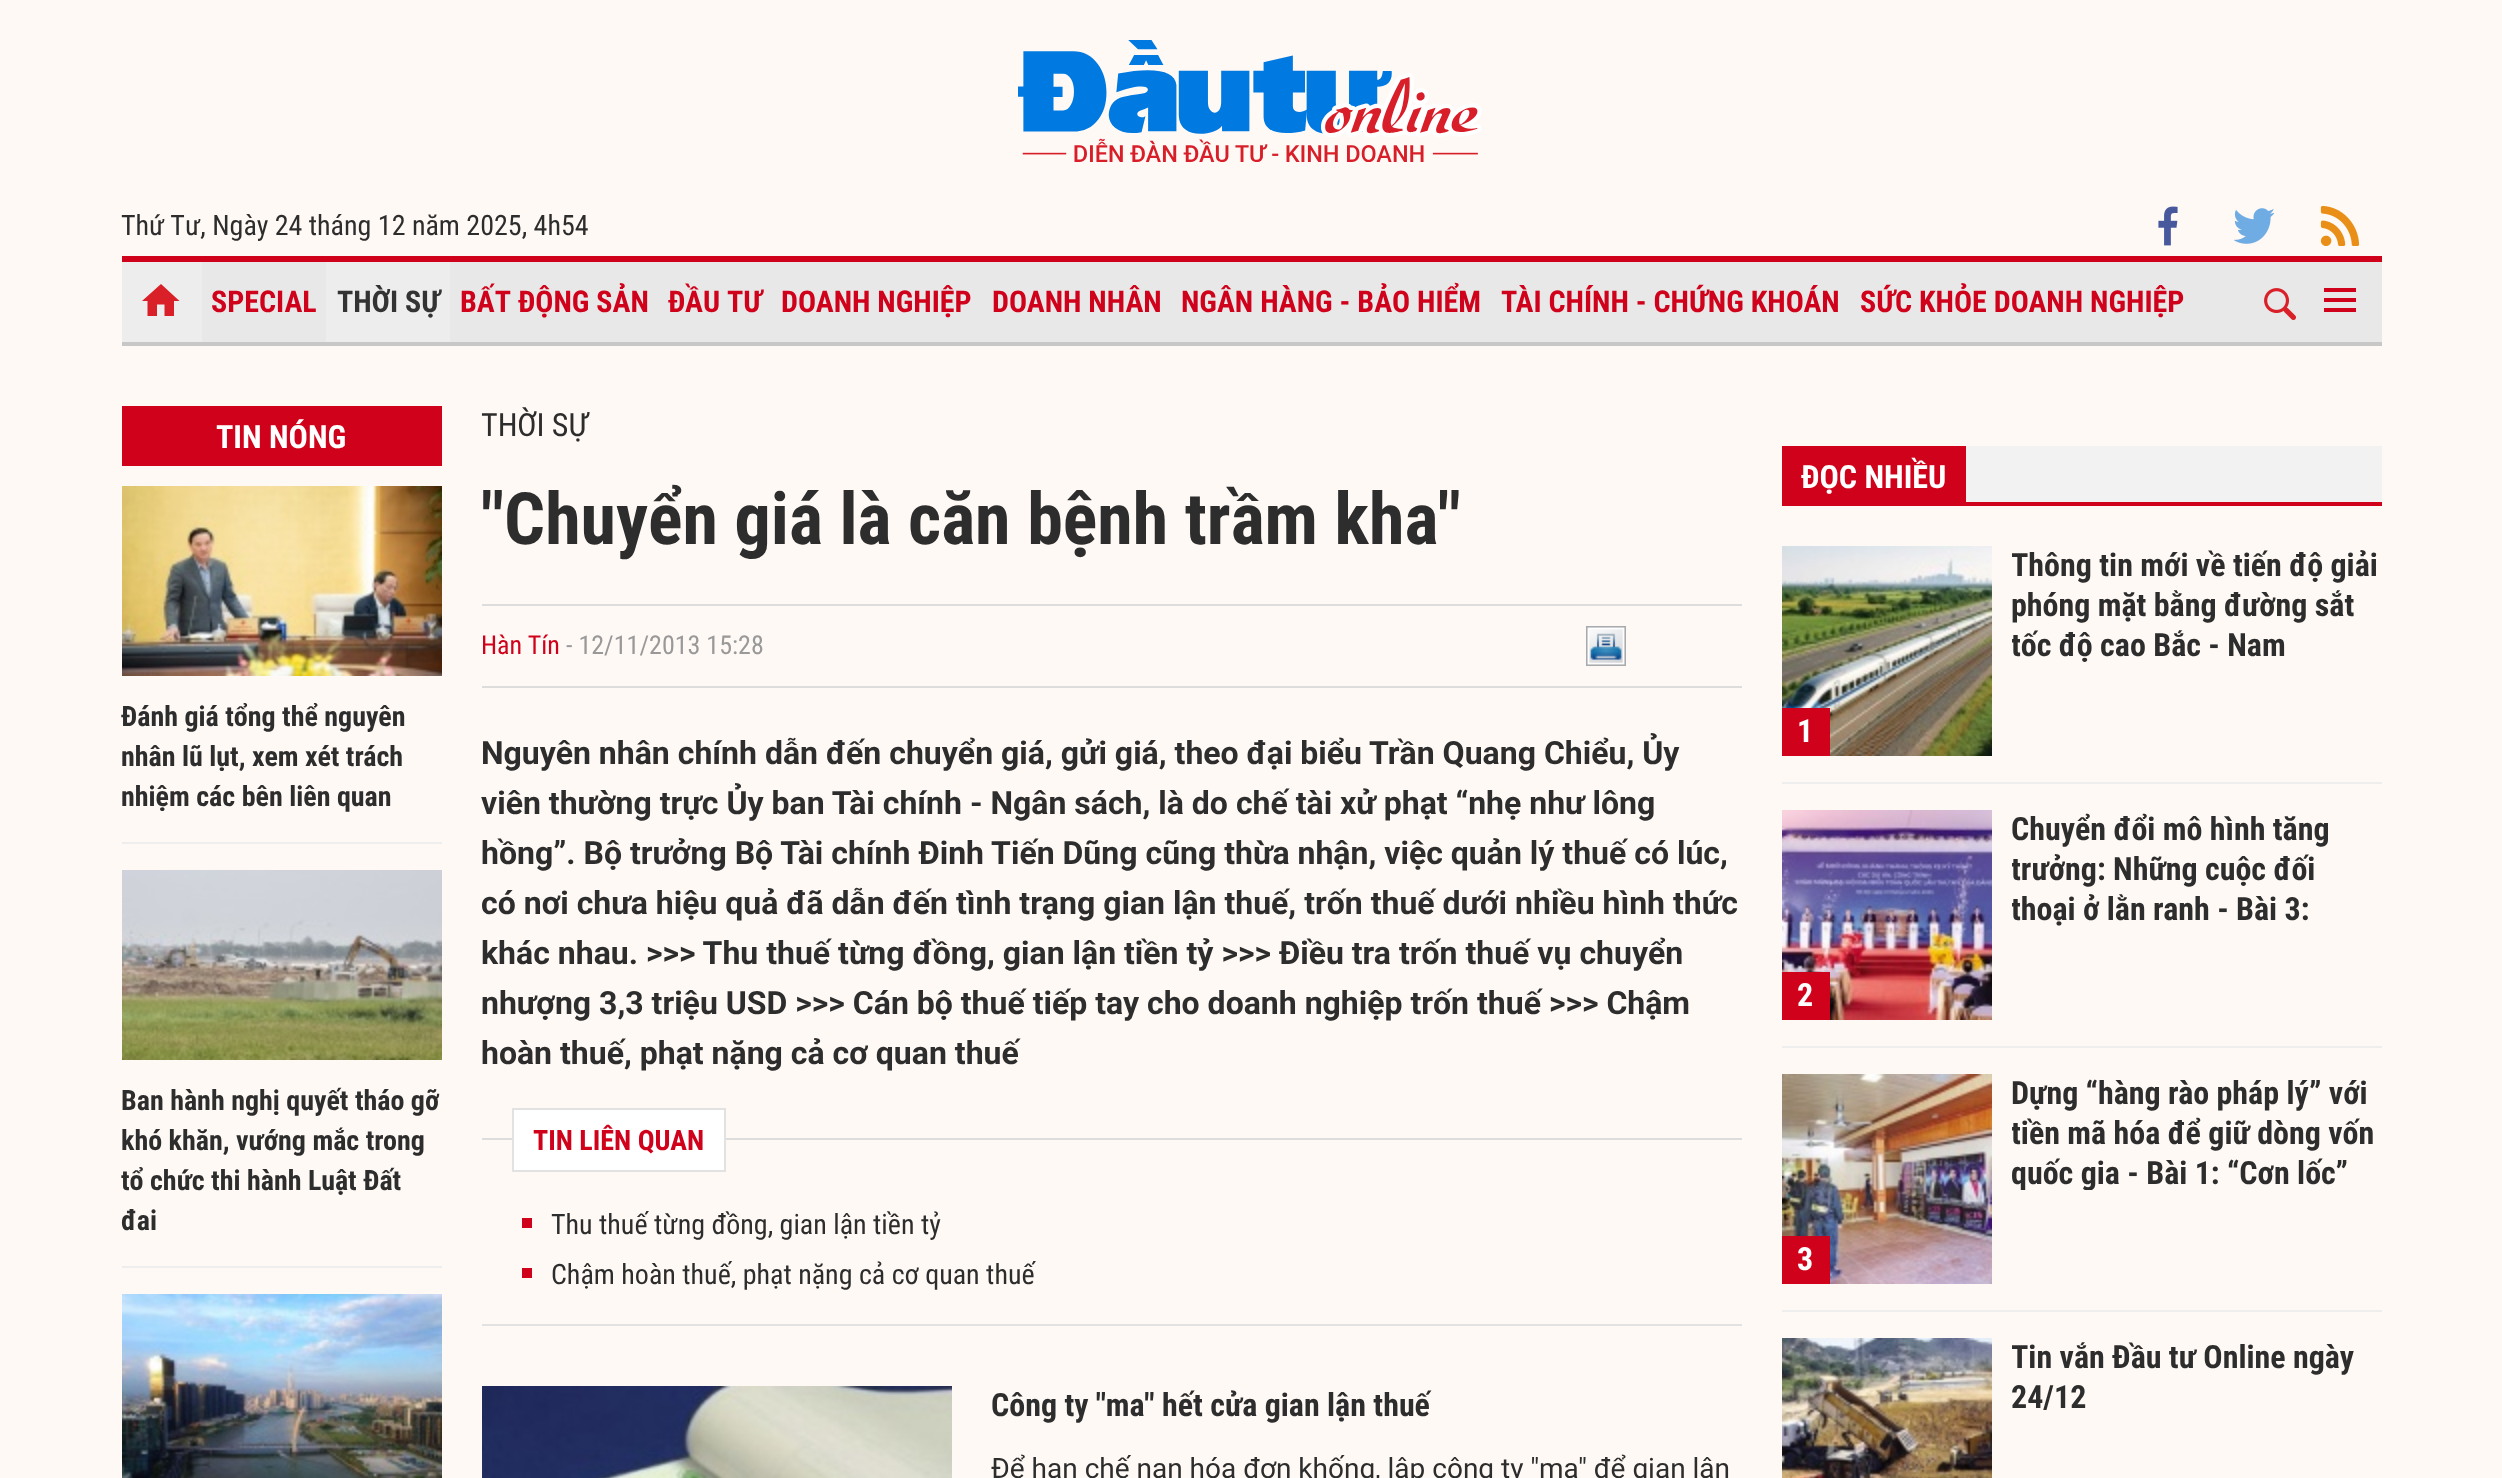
async function draw(canvas) {
	canvas.width = 2502;
	canvas.height = 1478;
	const c = canvas.getContext('2d');
	c.miterLimit = 4;
	c.fontKerning = 'normal';
	async function loadImage(src) {
		const img = new Image();
		img.src = src;
		await img.decode();
		return img;
	}

	c.fillStyle = '#fef9f5';
	c.fillRect(0, 0, 2502, 1478);
	c.drawImage(await loadImage('img1.png'), 1018, 40, 464, 122);
	c.font = '28px Roboto Condensed';
	c.fillStyle = '#2d2d2d';
	c.fillText('Thứ Tư, Ngày 24 tháng 12 năm 2025, 4h54', 121, 235);
	c.drawImage(await loadImage('img2.png'), 2158, 206, 20, 40);
	c.drawImage(await loadImage('img3.png'), 2234, 208, 40, 36);
	c.drawImage(await loadImage('img4.png'), 2320, 206, 40, 40);
	for (const [x, y, w, h, color] of [
		[202, 262, 2180, 80, '#e8e8e8'],
		[122, 256, 2260, 6, '#d0021b'],
		[122, 342, 2260, 4, '#c7c7c7'],
		[122, 262, 80, 80, '#ededed'],
	]) {
		c.fillStyle = color;
		c.fillRect(x, y, w, h);
	}
	c.fillStyle = '#d91f28';
	c.beginPath();
	c.moveTo(142, 301);
	c.lineTo(161, 284);
	c.lineTo(179.5, 301);
	c.lineTo(174, 301);
	c.lineTo(174, 316);
	c.lineTo(164.5, 316);
	c.lineTo(164.5, 304.5);
	c.lineTo(157, 304.5);
	c.lineTo(157, 316);
	c.lineTo(147.5, 316);
	c.lineTo(147.5, 301);
	c.closePath();
	c.fill();
	c.font = 'bold 30px Roboto Condensed';
	c.fillStyle = '#d0021b';
	c.fillText('SPECIAL', 211, 312);
	c.fillStyle = '#ededed';
	c.fillRect(326, 262, 124, 80);
	c.fillStyle = '#333';
	c.fillText('THỜI SỰ', 337, 312);
	c.fillStyle = '#d0021b';
	for (const [text, x, y] of [
		['BẤT ĐỘNG SẢN', 460, 312],
		['ĐẦU TƯ', 668, 312],
		['DOANH NGHIỆP', 781, 312],
		['DOANH NHÂN', 992, 312],
		['NGÂN HÀNG - BẢO HIỂM', 1181, 312],
		['TÀI CHÍNH - CHỨNG KHOÁN', 1501, 312],
		['SỨC KHỎE DOANH NGHIỆP', 1860, 312],
	]) {
		c.fillText(text, x, y);
	}
	c.drawImage(await loadImage('img5.png'), 2264, 288, 32, 32);
	for (const [x, y, w, h, color] of [
		[2324, 288, 32, 4, '#d0021b'],
		[2324, 298, 32, 4, '#d0021b'],
		[2324, 308, 32, 4, '#d0021b'],
		[122, 406, 320, 60, '#d0021b'],
	]) {
		c.fillStyle = color;
		c.fillRect(x, y, w, h);
	}
	c.font = 'bold 32px Roboto Condensed';
	c.fillStyle = '#fff';
	c.fillText('TIN NÓNG', 216, 448);
	c.fillStyle = '#eee';
	c.fillRect(122, 842, 320, 2);
	c.drawImage(await loadImage('img6.png'), 122, 486, 320, 190);
	c.font = 'bold 28px Roboto Condensed';
	c.fillStyle = '#2d2d2d';
	for (const [text, x, y] of [
		['Đánh giá tổng thể nguyên', 121, 726],
		['nhân lũ lụt, xem xét trách', 121, 766],
		['nhiệm các bên liên quan', 121, 806],
	]) {
		c.fillText(text, x, y);
	}
	c.fillStyle = '#eee';
	c.fillRect(122, 1266, 320, 2);
	c.drawImage(await loadImage('img7.png'), 122, 870, 320, 190);
	c.fillStyle = '#2d2d2d';
	for (const [text, x, y] of [
		['Ban hành nghị quyết tháo gỡ', 121, 1110],
		['khó khăn, vướng mắc trong', 121, 1150],
		['tổ chức thi hành Luật Đất', 121, 1190],
		['đai', 121, 1230],
	]) {
		c.fillText(text, x, y);
	}
	c.drawImage(await loadImage('img8.png'), 122, 1294, 320, 184);
	c.font = '32px Roboto Condensed';
	c.fillText('THỜI SỰ', 481, 436);
	c.font = 'bold 72px Roboto Condensed';
	c.fillText('"Chuyển giá là căn bệnh trầm kha"', 481, 544);
	c.fillStyle = '#ddd';
	c.fillRect(482, 604, 1260, 2);
	c.fillRect(482, 686, 1260, 2);
	c.font = '26px Roboto Condensed';
	c.fillStyle = '#d0021b';
	c.fillText('Hàn Tín', 481, 654);
	c.fillStyle = '#999';
	c.fillText('- 12/11/2013 15:28', 566, 654);
	c.drawImage(await loadImage('img9.png'), 1586, 626, 40, 40);
	c.font = 'bold 32px Roboto';
	c.fillStyle = '#2d2d2d';
	for (const [text, x, y] of [
		['Nguyên nhân chính dẫn đến chuyển giá, gửi giá, theo đại biểu Trần Quang Chiểu, Ủy', 481, 764],
		['viên thường trực Ủy ban Tài chính - Ngân sách, là do chế tài xử phạt “nhẹ như lông', 481, 814],
		['hồng”. Bộ trưởng Bộ Tài chính Đinh Tiến Dũng cũng thừa nhận, việc quản lý thuế có lúc,', 481, 864],
		['có nơi chưa hiệu quả đã dẫn đến tình trạng gian lận thuế, trốn thuế dưới nhiều hình thức', 481, 914],
		['khác nhau. >>> Thu thuế từng đồng, gian lận tiền tỷ >>> Điều tra trốn thuế vụ chuyển', 481, 964],
		['nhượng 3,3 triệu USD >>> Cán bộ thuế tiếp tay cho doanh nghiệp trốn thuế >>> Chậm', 481, 1014],
		['hoàn thuế, phạt nặng cả cơ quan thuế', 481, 1064],
	]) {
		c.fillText(text, x, y);
	}
	c.fillStyle = '#ddd';
	c.fillRect(482, 1138, 1260, 2);
	c.fillStyle = '#e2e2e2';
	c.fillRect(482, 1324, 1260, 2);
	c.fillStyle = '#fff';
	c.beginPath();
	c.rect(513, 1109, 212, 62);
	c.fill();
	c.strokeStyle = '#e2e2e2';
	c.lineWidth = 2;
	c.stroke();
	c.font = 'bold 28px Roboto Condensed';
	c.fillStyle = '#d0021b';
	c.fillText('TIN LIÊN QUAN', 533, 1150);
	c.fillRect(522, 1218, 10, 10);
	c.font = '28px Roboto Condensed';
	c.fillStyle = '#2d2d2d';
	c.fillText('Thu thuế từng đồng, gian lận tiền tỷ', 551, 1234);
	c.fillStyle = '#d0021b';
	c.fillRect(522, 1268, 10, 10);
	c.fillStyle = '#2d2d2d';
	c.fillText('Chậm hoàn thuế, phạt nặng cả cơ quan thuế', 551, 1284);
	c.drawImage(await loadImage('img10.png'), 482, 1386, 470, 92);
	c.font = 'bold 32px Roboto Condensed';
	c.fillText('Công ty "ma" hết cửa gian lận thuế', 991, 1416);
	c.font = '28px Roboto';
	c.fillText('Để hạn chế nạn hóa đơn khống, lập công ty "ma" để gian lận', 991, 1478);
	for (const [x, y, w, h, color] of [
		[1966, 446, 416, 56, '#f2f2f2'],
		[1782, 502, 600, 4, '#d0021b'],
		[1782, 446, 184, 56, '#d0021b'],
	]) {
		c.fillStyle = color;
		c.fillRect(x, y, w, h);
	}
	c.font = 'bold 32px Roboto Condensed';
	c.fillStyle = '#fff';
	c.fillText('ĐỌC NHIỀU', 1801, 488);
	c.fillStyle = '#eee';
	c.fillRect(1782, 782, 600, 2);
	c.save();
	c.beginPath();
	c.rect(2012, 546, 370, 116);
	c.clip();
	c.fillStyle = '#2d2d2d';
	c.fillText('Thông tin mới về tiến độ giải', 2011, 576);
	c.restore();
	c.fillStyle = '#2d2d2d';
	c.fillText('phóng mặt bằng đường sắt', 2011, 616);
	c.save();
	c.beginPath();
	c.rect(2012, 546, 370, 116);
	c.clip();
	c.fillText('tốc độ cao Bắc - Nam', 2011, 656);
	c.restore();
	c.drawImage(await loadImage('img11.png'), 1782, 546, 210, 210);
	c.fillStyle = '#d0021b';
	c.fillRect(1782, 708, 48, 48);
	c.fillStyle = '#fff';
	c.fillText('1', 1797, 742);
	c.fillStyle = '#eee';
	c.fillRect(1782, 1046, 600, 2);
	c.fillStyle = '#2d2d2d';
	c.fillText('Chuyển đổi mô hình tăng', 2011, 840);
	c.save();
	c.beginPath();
	c.rect(2012, 810, 370, 116);
	c.clip();
	c.fillText('trưởng: Những cuộc đối', 2011, 880);
	c.fillText('thoại ở lằn ranh - Bài 3:', 2011, 920);
	c.restore();
	c.drawImage(await loadImage('img12.png'), 1782, 810, 210, 210);
	c.fillStyle = '#d0021b';
	c.fillRect(1782, 972, 48, 48);
	c.fillStyle = '#fff';
	c.fillText('2', 1797, 1006);
	c.fillStyle = '#eee';
	c.fillRect(1782, 1310, 600, 2);
	c.fillStyle = '#2d2d2d';
	c.fillText('Dựng “hàng rào pháp lý” với', 2011, 1104);
	c.save();
	c.beginPath();
	c.rect(2012, 1074, 370, 116);
	c.clip();
	c.fillText('tiền mã hóa để giữ dòng vốn', 2011, 1144);
	c.fillText('quốc gia - Bài 1: “Cơn lốc”', 2011, 1184);
	c.restore();
	c.drawImage(await loadImage('img13.png'), 1782, 1074, 210, 210);
	c.fillStyle = '#d0021b';
	c.fillRect(1782, 1236, 48, 48);
	c.fillStyle = '#fff';
	c.fillText('3', 1797, 1270);
	c.drawImage(await loadImage('img14.png'), 1782, 1338, 210, 140);
	c.save();
	c.beginPath();
	c.rect(2012, 1338, 370, 116);
	c.clip();
	c.fillStyle = '#2d2d2d';
	c.fillText('Tin vắn Đầu tư Online ngày', 2011, 1368);
	c.restore();
	c.fillStyle = '#2d2d2d';
	c.fillText('24/12', 2011, 1408);
}

draw(document.querySelector('canvas'));
